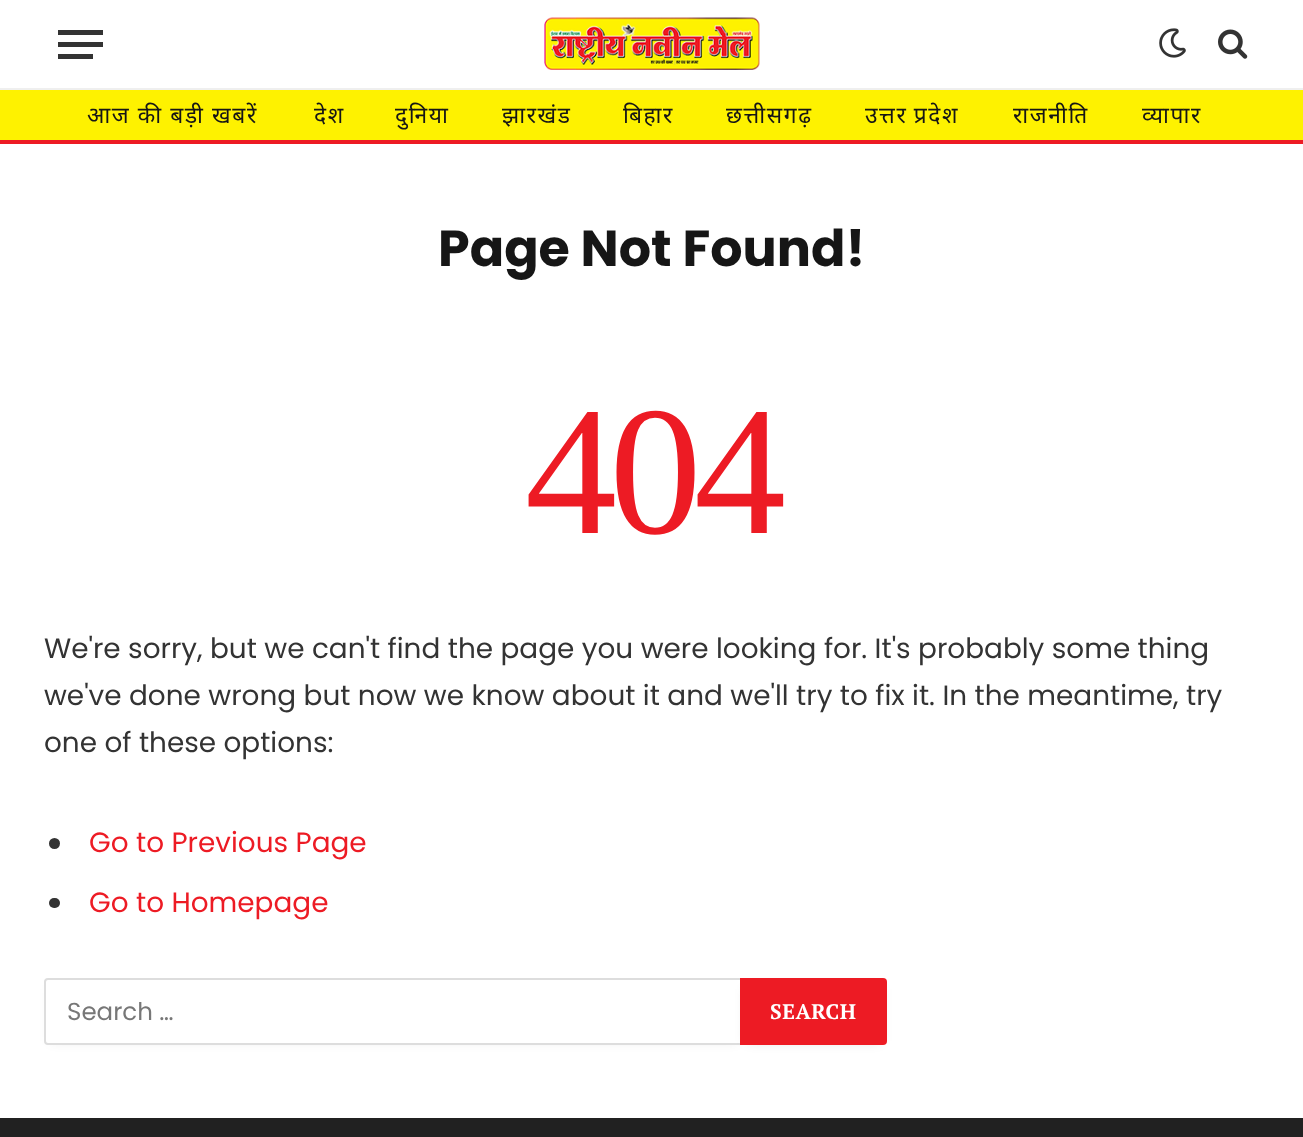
async function draw(canvas) {
	canvas.width = 1303;
	canvas.height = 1137;
	const c = canvas.getContext('2d');
	c.miterLimit = 4;
	c.fontKerning = 'normal';
	async function loadImage(src) {
		const img = new Image();
		img.src = src;
		await img.decode();
		return img;
	}

	c.fillStyle = '#fff';
	c.fillRect(0, 0, 1303, 1137);
	for (const [x, y, w, h, color] of [
		[58, 54, 35, 5, '#333'],
		[58, 30, 45, 5, '#333'],
		[58, 42, 45, 5, '#333'],
	]) {
		c.fillStyle = color;
		c.fillRect(x, y, w, h);
	}
	c.drawImage(await loadImage('img1.png'), 544, 17, 216, 53);
	c.drawImage(await loadImage('img2.png'), 1159, 28, 27, 30);
	c.drawImage(await loadImage('img3.png'), 1218, 29, 30, 30);
	for (const [x, y, w, h, color] of [
		[0, 90, 1303, 50, '#fef200'],
		[0, 88, 1303, 2, '#efefef'],
		[0, 140, 1303, 4, '#ed1b24'],
	]) {
		c.fillStyle = color;
		c.fillRect(x, y, w, h);
	}
	c.letterSpacing = '1.6px';
	c.font = '22.75px Noto Sans';
	c.fillStyle = '#161616';
	for (const [text, x, y] of [
		['आज की बड़ी खबरें', 87, 123],
		['देश', 314, 123],
		['दुनिया', 395, 123],
		['झारखंड', 502, 123],
		['बिहार', 623, 123],
		['छत्तीसगढ़', 726, 123],
	]) {
		c.fillText(text, x, y);
	}
	c.wordSpacing = '-1px';
	c.fillText('उत्तर प्रदेश', 865, 123);
	c.wordSpacing = '0px';
	c.fillText('राजनीति', 1013, 123);
	c.fillText('व्यापार', 1142, 123);
	c.letterSpacing = '0px';
	c.font = 'bold 50.75px Poppins';
	c.fillText('Page Not Found!', 438, 266);
	c.letterSpacing = '-7.5px';
	c.font = '184px Liberation Serif';
	c.fillStyle = '#ed1b24';
	c.fillText('404', 525, 533);
	c.letterSpacing = '0px';
	c.font = '27.9px Poppins';
	c.fillStyle = '#333';
	for (const [text, x, y] of [
		['We\'re sorry, but we can\'t find the page you were looking for. It\'s probably some thing', 44, 658],
		['we\'ve done wrong but now we know about it and we\'ll try to fix it. In the meantime, try', 44, 705],
		['one of these options:', 44, 752],
	]) {
		c.fillText(text, x, y);
	}
	c.beginPath();
	c.arc(54.5, 843.5, 5.5, 0, 2 * Math.PI);
	c.fill();
	c.fillStyle = '#ed1b24';
	c.fillText('Go to Previous Page', 89, 852);
	c.fillStyle = '#333';
	c.beginPath();
	c.roundRect(49, 898, 11, 10, 5);
	c.fill();
	c.fillStyle = '#ed1b24';
	c.fillText('Go to Homepage', 89, 912);
	c.fillStyle = '#0000001a';
	c.filter = 'blur(6px)';
	c.beginPath();
	c.rect(51, 989, 686, 52);
	c.fill();
	c.filter = 'none';
	c.fillStyle = '#fff';
	c.beginPath();
	c.roundRect(45, 979, 698, 65, 3);
	c.fill();
	c.strokeStyle = '#ddd';
	c.lineWidth = 2;
	c.stroke();
	c.font = '24.5px Poppins';
	c.fillStyle = '#777';
	c.fillText('Search …', 67, 1020);
	c.fillStyle = '#00000029';
	c.filter = 'blur(6px)';
	c.beginPath();
	c.rect(747, 989, 133, 52);
	c.fill();
	c.filter = 'none';
	c.fillStyle = '#ed1b24';
	c.beginPath();
	c.roundRect(740, 978, 147, 67, [0, 4, 4, 0]);
	c.fill();
	c.letterSpacing = '0.5px';
	c.font = 'bold 21px PT Serif';
	c.fillStyle = '#fff';
	c.fillText('SEARCH', 770, 1019);
	c.fillStyle = '#212121';
	c.fillRect(0, 1118, 1303, 19);
}

draw(document.querySelector('canvas'));
